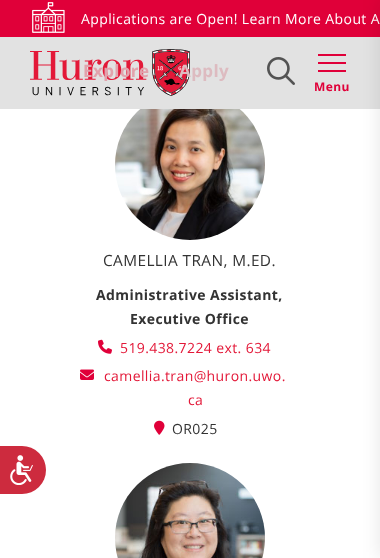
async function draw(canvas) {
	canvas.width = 380;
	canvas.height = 558;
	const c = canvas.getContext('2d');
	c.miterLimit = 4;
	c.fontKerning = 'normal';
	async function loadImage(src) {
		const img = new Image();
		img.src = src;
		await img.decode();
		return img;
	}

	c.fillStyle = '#fff';
	c.fillRect(0, 0, 380, 558);
	c.fillStyle = '#e00039';
	c.fillRect(0, 0, 380, 37);
	c.drawImage(await loadImage('img1.png'), 32, 2, 33, 31);
	c.letterSpacing = '0.4px';
	c.font = '14px Open Sans';
	c.fillStyle = '#fff';
	c.fillText('Applications are Open! Learn More About A', 81, 24);
	c.fillStyle = '#e2e2e2';
	c.fillRect(0, 37, 380, 72);
	c.drawImage(await loadImage('img2.png'), 30, 49, 160, 47);
	c.drawImage(await loadImage('img3.png'), 267, 57, 28, 28);
	c.font = 'bold 17px Open Sans';
	c.fillStyle = '#e2a2ac';
	c.fillText('Explore', 83, 77);
	c.fillStyle = '#ddbbc0';
	c.fillText('Apply', 179, 77);
	for (const [x, y, w, h, color] of [
		[318, 62, 28, 2, '#e00039'],
		[318, 54, 28, 2, '#e00039'],
		[318, 70, 28, 2, '#e00039'],
	]) {
		c.fillStyle = color;
		c.fillRect(x, y, w, h);
	}
	c.font = 'bold 12px Open Sans';
	c.fillText('Menu', 314, 91);
	c.fillStyle = '#0000001a';
	c.filter = 'blur(9px)';
	c.beginPath();
	c.rect(380, 0, 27, 558);
	c.fill();
	c.filter = 'none';
	c.drawImage(await loadImage('img4.png'), 115, 109, 150, 131);
	c.font = '15.4px Open Sans';
	c.fillStyle = '#333';
	c.fillText('CAMELLIA TRAN, M.ED.', 103, 266);
	c.font = 'bold 14px Open Sans';
	c.fillText('Administrative Assistant,', 96, 300);
	c.fillText('Executive Office', 130, 324);
	c.drawImage(await loadImage('img5.png'), 98, 339, 14, 15);
	c.font = '14px Open Sans';
	c.fillStyle = '#e31838';
	c.fillText('519.438.7224 ext. 634', 120, 353);
	c.drawImage(await loadImage('img6.png'), 80, 369, 14, 11);
	c.fillText('camellia.tran@huron.uwo.', 104, 381);
	c.fillText('ca', 188, 405);
	c.drawImage(await loadImage('img7.png'), 154, 420, 11, 15);
	c.fillStyle = '#333';
	c.fillText('OR025', 172, 434);
	c.drawImage(await loadImage('img8.png'), 115, 463, 150, 95);
	c.fillStyle = '#cd2b3e';
	c.beginPath();
	c.roundRect(0, 446, 46, 48, [0, 24, 24, 0]);
	c.fill();
	c.drawImage(await loadImage('img9.png'), 10, 455, 23, 30);
}

draw(document.querySelector('canvas'));
